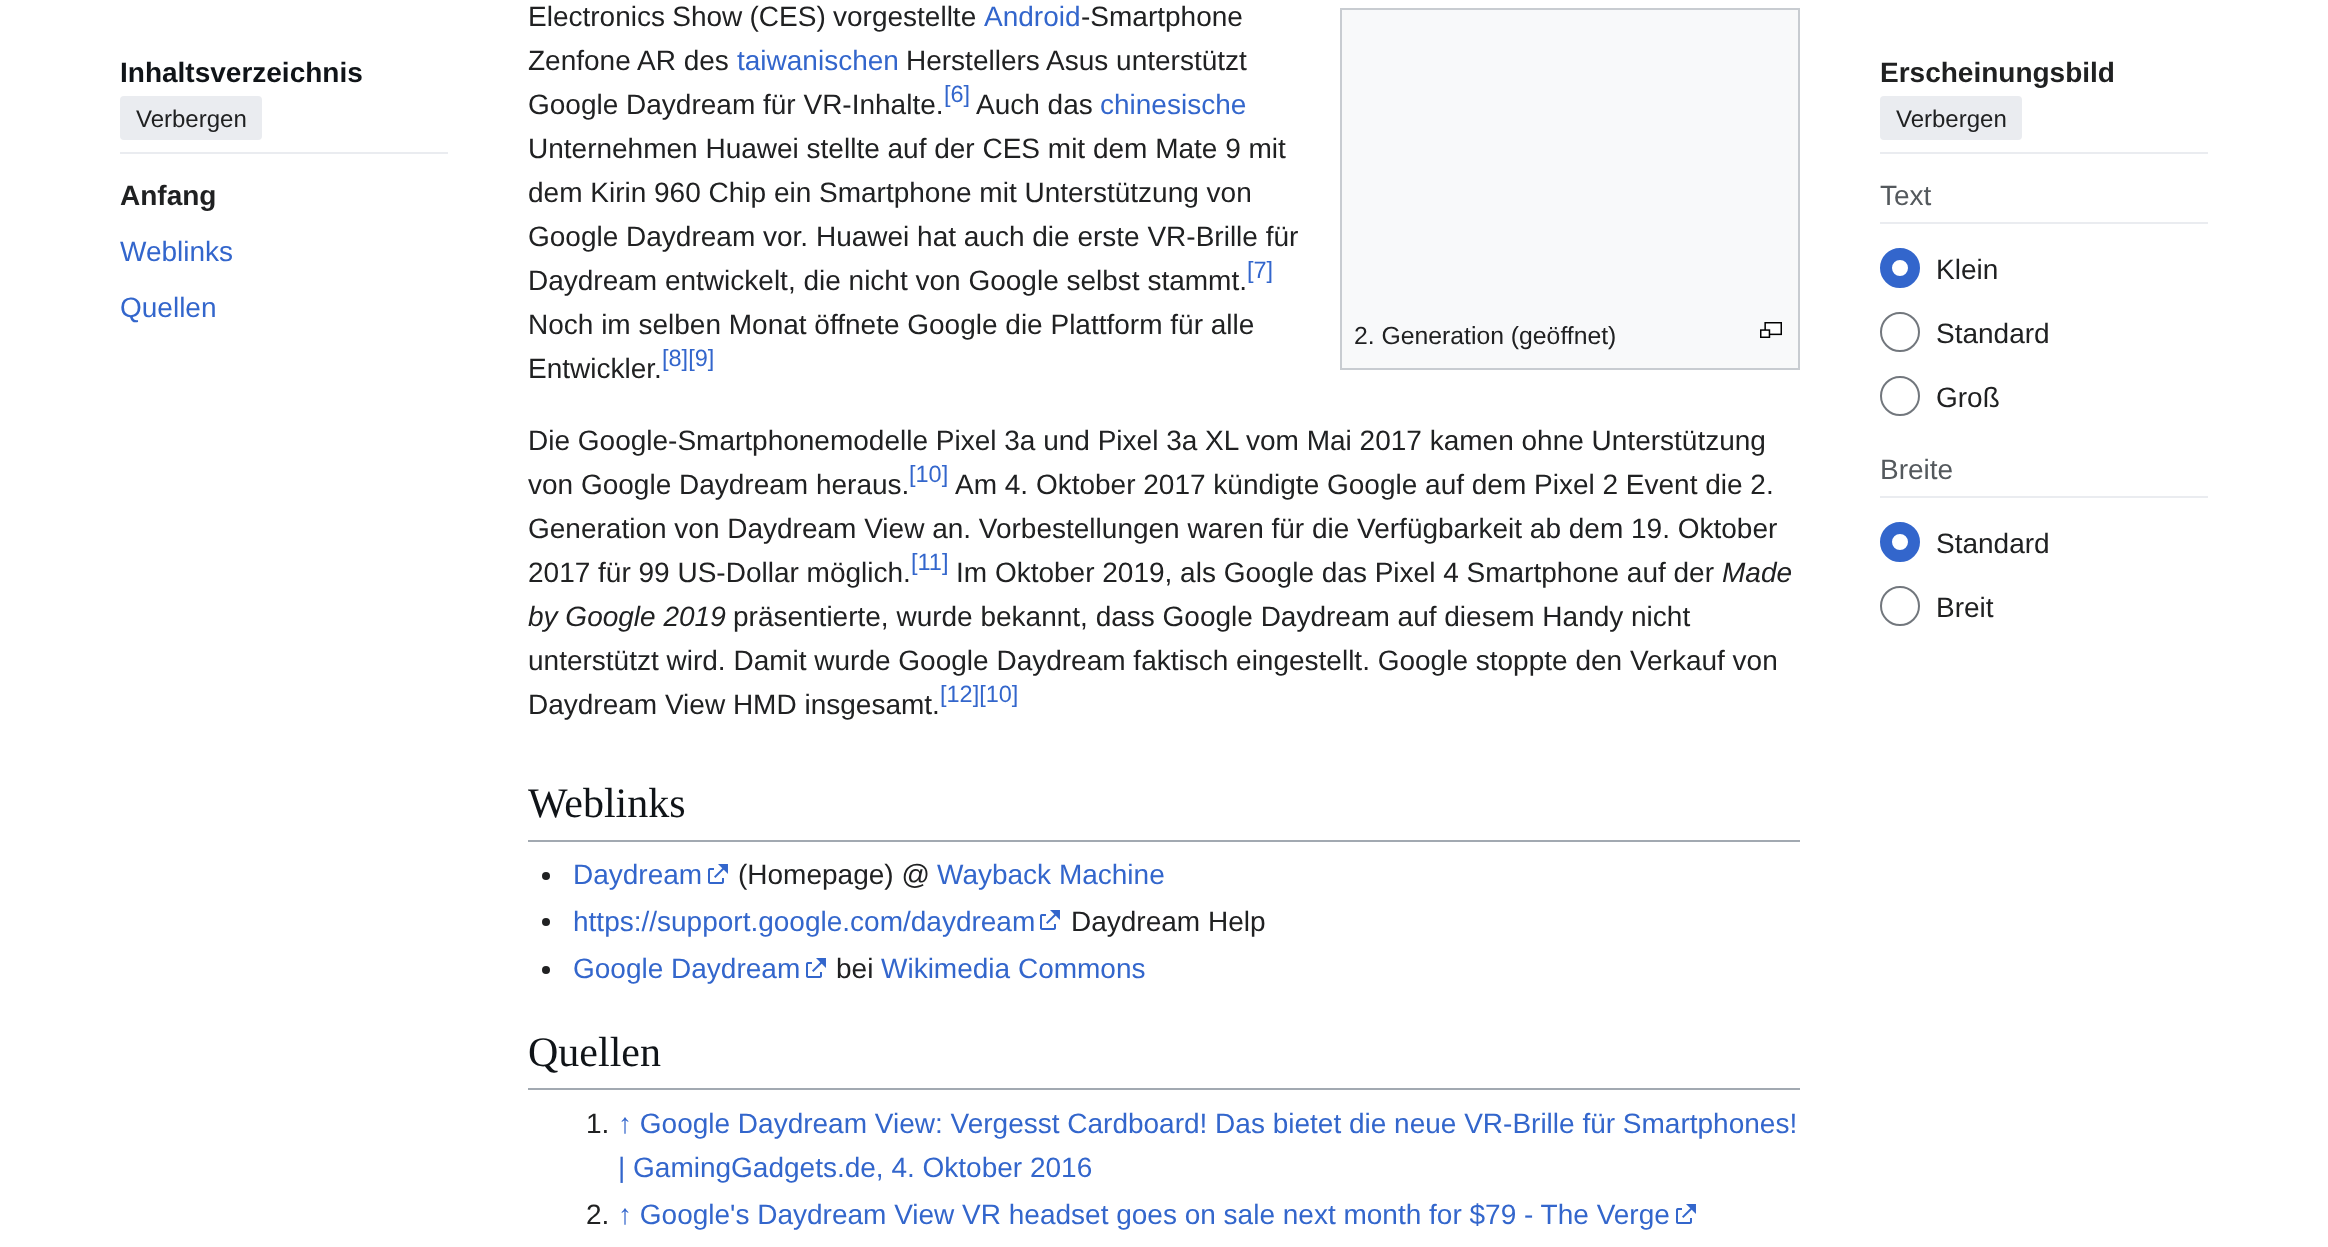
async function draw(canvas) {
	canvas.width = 2328;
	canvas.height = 1247;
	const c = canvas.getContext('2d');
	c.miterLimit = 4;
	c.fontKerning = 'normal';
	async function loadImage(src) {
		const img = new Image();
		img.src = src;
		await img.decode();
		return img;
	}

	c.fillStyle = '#fff';
	c.fillRect(0, 0, 2328, 1247);
	c.fillStyle = '#eaecf0';
	c.fillRect(120, 152, 328, 2);
	c.font = 'bold 28px Liberation Sans';
	c.fillStyle = '#101418';
	c.fillText('Inhaltsverzeichnis', 120, 82);
	c.fillStyle = '#eaecf0';
	c.beginPath();
	c.roundRect(120, 96, 142, 44, 4);
	c.fill();
	c.font = '24px Liberation Sans';
	c.fillStyle = '#202122';
	c.fillText('Verbergen', 136, 127);
	c.font = 'bold 28px Liberation Sans';
	c.fillText('Anfang', 120, 205);
	c.font = '28px Liberation Sans';
	c.fillStyle = '#36c';
	c.fillText('Weblinks', 120, 261);
	c.fillText('Quellen', 120, 317);
	c.wordSpacing = '-0.5px';
	c.fillStyle = '#202122';
	c.fillText('Electronics Show (CES) vorgestellte', 528, 26);
	c.wordSpacing = '0px';
	c.fillStyle = '#36c';
	c.fillText('Android', 984, 26);
	c.fillStyle = '#202122';
	c.fillText('-Smartphone', 1081, 26);
	c.fillText('Zenfone AR des', 528, 70);
	c.fillStyle = '#36c';
	c.fillText('taiwanischen', 737, 70);
	c.fillStyle = '#202122';
	c.fillText('Herstellers Asus unterstützt', 906, 70);
	c.fillText('Google Daydream für VR-Inhalte.', 528, 114);
	c.font = '23.5px Liberation Sans';
	c.fillStyle = '#36c';
	c.fillText('[6]', 944, 102);
	c.font = '28px Liberation Sans';
	c.fillStyle = '#202122';
	c.fillText('Auch das', 976, 114);
	c.fillStyle = '#36c';
	c.fillText('chinesische', 1100, 114);
	c.fillStyle = '#202122';
	for (const [text, x, y] of [
		['Unternehmen Huawei stellte auf der CES mit dem Mate 9 mit', 528, 158],
		['dem Kirin 960 Chip ein Smartphone mit Unterstützung von', 528, 202],
		['Google Daydream vor. Huawei hat auch die erste VR-Brille für', 528, 246],
		['Daydream entwickelt, die nicht von Google selbst stammt.', 528, 290],
	]) {
		c.fillText(text, x, y);
	}
	c.font = '23.5px Liberation Sans';
	c.fillStyle = '#36c';
	c.fillText('[7]', 1247, 278);
	c.font = '28px Liberation Sans';
	c.fillStyle = '#202122';
	c.fillText('Noch im selben Monat öffnete Google die Plattform für alle', 528, 334);
	c.fillText('Entwickler.', 528, 378);
	c.font = '23.5px Liberation Sans';
	c.fillStyle = '#36c';
	c.fillText('[8][9]', 662, 366);
	for (const [x, y, w, h, color] of [
		[1342, 10, 456, 358, '#f8f9fa'],
		[1340, 8, 460, 2, '#c8ccd1'],
		[1340, 368, 460, 2, '#c8ccd1'],
		[1798, 8, 2, 362, '#c8ccd1'],
		[1340, 8, 2, 362, '#c8ccd1'],
	]) {
		c.fillStyle = color;
		c.fillRect(x, y, w, h);
	}
	c.font = '24.75px Liberation Sans';
	c.fillStyle = '#202122';
	c.fillText('2. Generation (geöffnet)', 1354, 344);
	c.drawImage(await loadImage('img1.png'), 1760, 322, 22, 16);
	c.font = '28px Liberation Sans';
	c.fillText('Die Google-Smartphonemodelle Pixel 3a und Pixel 3a XL vom Mai 2017 kamen ohne Unterstützung', 528, 450);
	c.fillText('von Google Daydream heraus.', 528, 494);
	c.font = '23.5px Liberation Sans';
	c.fillStyle = '#36c';
	c.fillText('[10]', 909, 482);
	c.font = '28px Liberation Sans';
	c.fillStyle = '#202122';
	for (const [text, x, y] of [
		['Am 4. Oktober 2017 kündigte Google auf dem Pixel 2 Event die 2.', 955, 494],
		['Generation von Daydream View an. Vorbestellungen waren für die Verfügbarkeit ab dem 19. Oktober', 528, 538],
		['2017 für 99 US-Dollar möglich.', 528, 582],
	]) {
		c.fillText(text, x, y);
	}
	c.font = '23.5px Liberation Sans';
	c.fillStyle = '#36c';
	c.fillText('[11]', 911, 570);
	c.font = '28px Liberation Sans';
	c.fillStyle = '#202122';
	c.fillText('Im Oktober 2019, als Google das Pixel 4 Smartphone auf der', 956, 582);
	c.font = 'italic 28px Liberation Sans';
	c.fillText('Made', 1722, 582);
	c.fillText('by Google 2019', 528, 626);
	c.font = '28px Liberation Sans';
	for (const [text, x, y] of [
		['präsentierte, wurde bekannt, dass Google Daydream auf diesem Handy nicht', 733, 626],
		['unterstützt wird. Damit wurde Google Daydream faktisch eingestellt. Google stoppte den Verkauf von', 528, 670],
		['Daydream View HMD insgesamt.', 528, 714],
	]) {
		c.fillText(text, x, y);
	}
	c.font = '23.5px Liberation Sans';
	c.fillStyle = '#36c';
	c.fillText('[12][10]', 940, 702);
	c.fillStyle = '#a2a9b1';
	c.fillRect(528, 840, 1272, 2);
	c.font = '42px Liberation Serif';
	c.fillStyle = '#101418';
	c.fillText('Weblinks', 528, 817);
	c.fillStyle = '#202122';
	c.beginPath();
	c.arc(546, 876, 4, 0, 2 * Math.PI);
	c.fill();
	c.font = '28px Liberation Sans';
	c.fillStyle = '#36c';
	c.fillText('Daydream', 573, 884);
	c.drawImage(await loadImage('img2.png'), 708, 864, 20, 20);
	c.fillStyle = '#202122';
	c.fillText('(Homepage) @', 738, 884);
	c.fillStyle = '#36c';
	c.fillText('Wayback Machine', 937, 884);
	c.fillStyle = '#202122';
	c.beginPath();
	c.arc(546, 922, 4, 0, 2 * Math.PI);
	c.fill();
	c.fillStyle = '#36c';
	c.fillText('https://support.google.com/daydream', 573, 931);
	c.drawImage(await loadImage('img2.png'), 1040, 910, 20, 20);
	c.fillStyle = '#202122';
	c.fillText('Daydream Help', 1071, 931);
	c.beginPath();
	c.arc(546, 970, 4, 0, 2 * Math.PI);
	c.fill();
	c.fillStyle = '#36c';
	c.fillText('Google Daydream', 573, 978);
	c.drawImage(await loadImage('img2.png'), 806, 958, 20, 20);
	c.fillStyle = '#202122';
	c.fillText('bei', 836, 978);
	c.fillStyle = '#36c';
	c.fillText('Wikimedia Commons', 881, 978);
	c.fillStyle = '#a2a9b1';
	c.fillRect(528, 1088, 1272, 2);
	c.font = '42px Liberation Serif';
	c.fillStyle = '#101418';
	c.fillText('Quellen', 528, 1066);
	c.font = '28px Liberation Sans';
	c.fillStyle = '#202122';
	c.fillText('1.', 586, 1133);
	c.fillStyle = '#36c';
	c.fillText('↑ Google Daydream View: Vergesst Cardboard! Das bietet die neue VR-Brille für Smartphones!', 618, 1133);
	c.fillText('| GamingGadgets.de, 4. Oktober 2016', 618, 1177);
	c.fillStyle = '#202122';
	c.fillText('2.', 586, 1224);
	c.fillStyle = '#36c';
	c.fillText('↑ Google\'s Daydream View VR headset goes on sale next month for $79 - The Verge', 618, 1224);
	c.drawImage(await loadImage('img2.png'), 1676, 1204, 20, 20);
	c.fillStyle = '#eaecf0';
	c.fillRect(1880, 152, 328, 2);
	c.font = 'bold 28px Liberation Sans';
	c.fillStyle = '#202122';
	c.fillText('Erscheinungsbild', 1880, 82);
	c.fillStyle = '#eaecf0';
	c.beginPath();
	c.roundRect(1880, 96, 142, 44, 4);
	c.fill();
	c.font = '24px Liberation Sans';
	c.fillStyle = '#202122';
	c.fillText('Verbergen', 1896, 127);
	c.fillStyle = '#eaecf0';
	c.fillRect(1880, 222, 328, 2);
	c.font = '28px Liberation Sans';
	c.fillStyle = '#54595d';
	c.fillText('Text', 1880, 205);
	c.beginPath();
	c.arc(1900, 268, 14, 0, 2 * Math.PI);
	c.strokeStyle = '#36c';
	c.lineWidth = 12;
	c.stroke();
	c.fillStyle = '#202122';
	c.fillText('Klein', 1936, 279);
	c.beginPath();
	c.arc(1900, 332, 19, 0, 2 * Math.PI);
	c.strokeStyle = '#72777d';
	c.lineWidth = 2;
	c.stroke();
	c.fillText('Standard', 1936, 343);
	c.beginPath();
	c.arc(1900, 396, 19, 0, 2 * Math.PI);
	c.stroke();
	c.fillText('Groß', 1936, 407);
	c.fillStyle = '#eaecf0';
	c.fillRect(1880, 496, 328, 2);
	c.fillStyle = '#54595d';
	c.fillText('Breite', 1880, 479);
	c.beginPath();
	c.arc(1900, 542, 14, 0, 2 * Math.PI);
	c.strokeStyle = '#36c';
	c.lineWidth = 12;
	c.stroke();
	c.fillStyle = '#202122';
	c.fillText('Standard', 1936, 553);
	c.beginPath();
	c.arc(1900, 606, 19, 0, 2 * Math.PI);
	c.strokeStyle = '#72777d';
	c.lineWidth = 2;
	c.stroke();
	c.fillText('Breit', 1936, 617);
}

draw(document.querySelector('canvas'));
